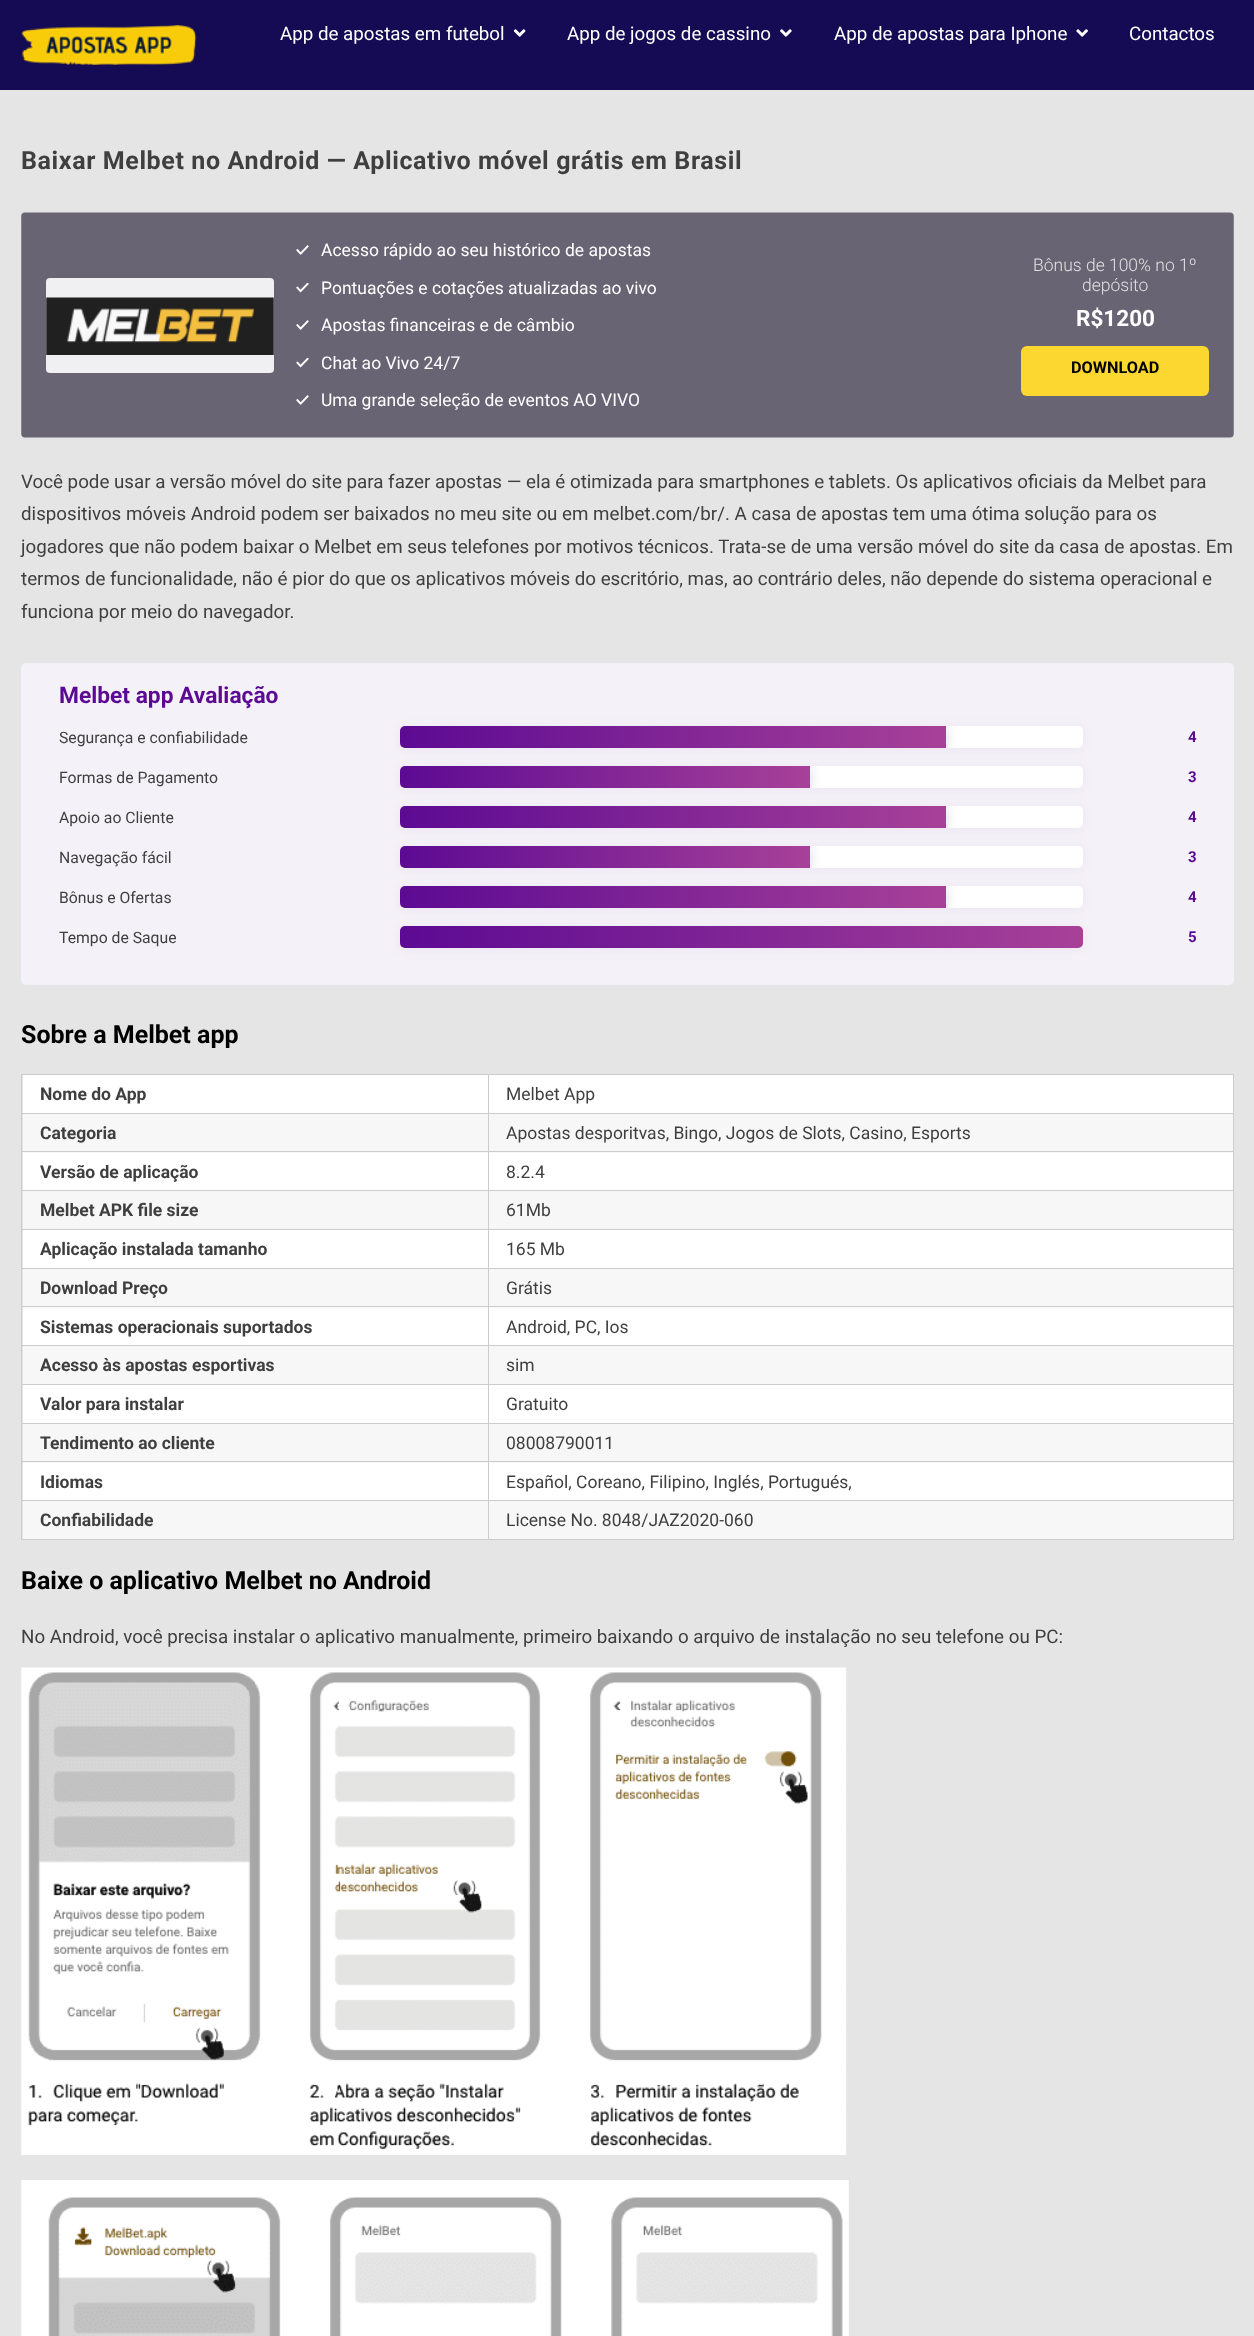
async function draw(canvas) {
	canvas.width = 1254;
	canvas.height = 2336;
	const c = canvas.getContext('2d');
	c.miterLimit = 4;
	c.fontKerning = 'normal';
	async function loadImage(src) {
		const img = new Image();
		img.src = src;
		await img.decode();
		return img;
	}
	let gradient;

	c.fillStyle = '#e5e5e5';
	c.fillRect(0, 0, 1254, 2336);
	c.fillStyle = '#150b54';
	c.fillRect(0, 0, 1254, 90);
	c.drawImage(await loadImage('img1.png'), 21, 25, 176, 40);
	c.font = '18.75px Roboto';
	c.fillStyle = '#fff';
	c.fillText('App de apostas em futebol', 280, 40);
	c.drawImage(await loadImage('img2.png'), 513, 29, 13, 8);
	c.fillText('App de jogos de cassino', 567, 40);
	c.drawImage(await loadImage('img3.png'), 780, 29, 12, 8);
	c.fillText('App de apostas para Iphone', 834, 40);
	c.drawImage(await loadImage('img4.png'), 1076, 29, 12, 8);
	c.fillText('Contactos', 1129, 40);
	c.letterSpacing = '0.62px';
	c.font = 'bold 25px Roboto';
	c.fillStyle = '#403f3f';
	c.fillText('Baixar Melbet no Android — Aplicativo móvel grátis em Brasil', 21, 169);
	c.drawImage(await loadImage('img5.png'), 21, 212, 1213, 226);
	c.fillStyle = '#f0eff1';
	c.beginPath();
	c.roundRect(46, 278, 228, 95, 4);
	c.fill();
	c.drawImage(await loadImage('img6.png'), 46, 297, 228, 58);
	c.drawImage(await loadImage('img7.png'), 296, 245, 13, 10);
	c.letterSpacing = '0px';
	c.font = '17.5px Roboto';
	c.fillStyle = '#fff';
	c.fillText('Acesso rápido ao seu histórico de apostas', 321, 256);
	c.drawImage(await loadImage('img8.png'), 296, 283, 13, 10);
	c.fillText('Pontuações e cotações atualizadas ao vivo', 321, 294);
	c.drawImage(await loadImage('img7.png'), 296, 320, 13, 10);
	c.fillText('Apostas financeiras e de câmbio', 321, 331);
	c.drawImage(await loadImage('img8.png'), 296, 358, 13, 10);
	c.fillText('Chat ao Vivo 24/7', 321, 369);
	c.drawImage(await loadImage('img7.png'), 296, 395, 13, 10);
	c.fillText('Uma grande seleção de eventos AO VIVO', 321, 406);
	c.font = '300 17.5px Roboto';
	c.fillStyle = '#e0e0e0';
	c.fillText('Bônus de 100% no 1º', 1033, 271);
	c.fillText('depósito', 1082, 291);
	c.font = 'bold 22.5px Roboto';
	c.fillStyle = '#fff';
	c.fillText('R$1200', 1076, 326);
	c.fillStyle = '#fcd730';
	c.beginPath();
	c.roundRect(1021, 346, 188, 50, 6);
	c.fill();
	c.font = 'bold 16.25px Roboto';
	c.fillStyle = '#000';
	c.fillText('DOWNLOAD', 1071, 373);
	c.font = '18.75px Roboto';
	c.fillStyle = '#403f3f';
	for (const [text, x, y] of [
		['Você pode usar a versão móvel do site para fazer apostas — ela é otimizada para smartphones e tablets. Os aplicativos oficiais da Melbet para', 21, 488],
		['dispositivos móveis Android podem ser baixados no meu site ou em melbet.com/br/. A casa de apostas tem uma ótima solução para os', 21, 520],
		['jogadores que não podem baixar o Melbet em seus telefones por motivos técnicos. Trata-se de uma versão móvel do site da casa de apostas. Em', 21, 553],
		['termos de funcionalidade, não é pior do que os aplicativos móveis do escritório, mas, ao contrário deles, não depende do sistema operacional e', 21, 585],
		['funciona por meio do navegador.', 21, 618],
	]) {
		c.fillText(text, x, y);
	}
	c.fillStyle = '#f5f1f8';
	c.beginPath();
	c.roundRect(21, 663, 1213, 322, 5);
	c.fill();
	c.font = 'bold 22.75px Roboto';
	c.fillStyle = '#5c0a93';
	c.fillText('Melbet app Avaliação', 59, 703);
	c.font = '15.75px Roboto';
	c.fillStyle = '#403f3f';
	c.fillText('Segurança e confiabilidade', 59, 743);
	c.fillStyle = '#927ba51a';
	c.filter = 'blur(6px)';
	c.beginPath();
	c.roundRect(400, 728, 683, 21, 5);
	c.fill();
	c.filter = 'none';
	c.fillStyle = '#fff';
	c.beginPath();
	c.roundRect(400, 726, 683, 22, 5);
	c.fill();
	c.save();
	c.beginPath();
	c.roundRect(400, 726, 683, 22, 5);
	c.clip();
	c.fillStyle = '#927ba54d';
	c.filter = 'blur(6px)';
	c.beginPath();
	c.rect(400, 728, 546, 21);
	c.fill();
	c.filter = 'none';
	c.restore();
	gradient = c.createLinearGradient(400, 737, 946, 737);
	gradient.addColorStop(0, '#5c0a93');
	gradient.addColorStop(1, '#a74198');
	c.fillStyle = gradient;
	c.beginPath();
	c.roundRect(400, 726, 546, 22, [5, 0, 0, 5]);
	c.fill();
	c.font = 'bold 15px Roboto';
	c.fillStyle = '#5c0a93';
	c.fillText('4', 1188, 742);
	c.font = '15.75px Roboto';
	c.fillStyle = '#403f3f';
	c.fillText('Formas de Pagamento', 59, 783);
	c.fillStyle = '#927ba51a';
	c.filter = 'blur(6px)';
	c.beginPath();
	c.roundRect(400, 768, 683, 21, 5);
	c.fill();
	c.filter = 'none';
	c.fillStyle = '#fff';
	c.beginPath();
	c.roundRect(400, 766, 683, 22, 5);
	c.fill();
	c.save();
	c.beginPath();
	c.roundRect(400, 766, 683, 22, 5);
	c.clip();
	c.fillStyle = '#927ba54d';
	c.filter = 'blur(6px)';
	c.beginPath();
	c.rect(400, 768, 410, 21);
	c.fill();
	c.filter = 'none';
	c.restore();
	gradient = c.createLinearGradient(400, 777, 810, 777);
	gradient.addColorStop(0, '#5c0a93');
	gradient.addColorStop(1, '#a74198');
	c.fillStyle = gradient;
	c.beginPath();
	c.roundRect(400, 766, 410, 22, [5, 0, 0, 5]);
	c.fill();
	c.font = 'bold 15px Roboto';
	c.fillStyle = '#5c0a93';
	c.fillText('3', 1188, 782);
	c.font = '15.75px Roboto';
	c.fillStyle = '#403f3f';
	c.fillText('Apoio ao Cliente', 59, 823);
	c.fillStyle = '#927ba51a';
	c.filter = 'blur(6px)';
	c.beginPath();
	c.roundRect(400, 808, 683, 21, 5);
	c.fill();
	c.filter = 'none';
	c.fillStyle = '#fff';
	c.beginPath();
	c.roundRect(400, 806, 683, 22, 5);
	c.fill();
	c.save();
	c.beginPath();
	c.roundRect(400, 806, 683, 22, 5);
	c.clip();
	c.fillStyle = '#927ba54d';
	c.filter = 'blur(6px)';
	c.beginPath();
	c.rect(400, 808, 546, 21);
	c.fill();
	c.filter = 'none';
	c.restore();
	gradient = c.createLinearGradient(400, 817, 946, 817);
	gradient.addColorStop(0, '#5c0a93');
	gradient.addColorStop(1, '#a74198');
	c.fillStyle = gradient;
	c.beginPath();
	c.roundRect(400, 806, 546, 22, [5, 0, 0, 5]);
	c.fill();
	c.font = 'bold 15px Roboto';
	c.fillStyle = '#5c0a93';
	c.fillText('4', 1188, 822);
	c.font = '15.75px Roboto';
	c.fillStyle = '#403f3f';
	c.fillText('Navegação fácil', 59, 863);
	c.fillStyle = '#927ba51a';
	c.filter = 'blur(6px)';
	c.beginPath();
	c.roundRect(400, 848, 683, 21, 5);
	c.fill();
	c.filter = 'none';
	c.fillStyle = '#fff';
	c.beginPath();
	c.roundRect(400, 846, 683, 22, 5);
	c.fill();
	c.save();
	c.beginPath();
	c.roundRect(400, 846, 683, 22, 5);
	c.clip();
	c.fillStyle = '#927ba54d';
	c.filter = 'blur(6px)';
	c.beginPath();
	c.rect(400, 848, 410, 21);
	c.fill();
	c.filter = 'none';
	c.restore();
	gradient = c.createLinearGradient(400, 857, 810, 857);
	gradient.addColorStop(0, '#5c0a93');
	gradient.addColorStop(1, '#a74198');
	c.fillStyle = gradient;
	c.beginPath();
	c.roundRect(400, 846, 410, 22, [5, 0, 0, 5]);
	c.fill();
	c.font = 'bold 15px Roboto';
	c.fillStyle = '#5c0a93';
	c.fillText('3', 1188, 862);
	c.font = '15.75px Roboto';
	c.fillStyle = '#403f3f';
	c.fillText('Bônus e Ofertas', 59, 903);
	c.fillStyle = '#927ba51a';
	c.filter = 'blur(6px)';
	c.beginPath();
	c.roundRect(400, 888, 683, 21, 5);
	c.fill();
	c.filter = 'none';
	c.fillStyle = '#fff';
	c.beginPath();
	c.roundRect(400, 886, 683, 22, 5);
	c.fill();
	c.save();
	c.beginPath();
	c.roundRect(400, 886, 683, 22, 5);
	c.clip();
	c.fillStyle = '#927ba54d';
	c.filter = 'blur(6px)';
	c.beginPath();
	c.rect(400, 888, 546, 21);
	c.fill();
	c.filter = 'none';
	c.restore();
	gradient = c.createLinearGradient(400, 897, 946, 897);
	gradient.addColorStop(0, '#5c0a93');
	gradient.addColorStop(1, '#a74198');
	c.fillStyle = gradient;
	c.beginPath();
	c.roundRect(400, 886, 546, 22, [5, 0, 0, 5]);
	c.fill();
	c.font = 'bold 15px Roboto';
	c.fillStyle = '#5c0a93';
	c.fillText('4', 1188, 902);
	c.font = '15.75px Roboto';
	c.fillStyle = '#403f3f';
	c.fillText('Tempo de Saque', 59, 943);
	c.fillStyle = '#927ba51a';
	c.filter = 'blur(6px)';
	c.beginPath();
	c.roundRect(400, 928, 683, 21, 5);
	c.fill();
	c.filter = 'none';
	c.save();
	c.beginPath();
	c.roundRect(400, 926, 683, 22, 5);
	c.clip();
	c.fillStyle = '#927ba54d';
	c.filter = 'blur(6px)';
	c.beginPath();
	c.rect(400, 928, 683, 21);
	c.fill();
	c.filter = 'none';
	c.restore();
	gradient = c.createLinearGradient(400, 937, 1083, 937);
	gradient.addColorStop(0, '#5c0a93');
	gradient.addColorStop(1, '#a74198');
	c.fillStyle = gradient;
	c.beginPath();
	c.roundRect(400, 926, 683, 22, 5);
	c.fill();
	c.font = 'bold 15px Roboto';
	c.fillStyle = '#5c0a93';
	c.fillText('5', 1188, 942);
	c.font = 'bold 25px Roboto';
	c.fillStyle = '#000';
	c.fillText('Sobre a Melbet app', 21, 1043);
	for (const [x, y, w, h, color] of [
		[21, 1074, 1213, 1, '#ccc'],
		[1233, 1074, 1, 466, '#ccc'],
		[21, 1539, 1213, 1, '#ccc'],
		[21, 1074, 1, 466, '#ccc'],
		[23, 1075, 465, 38, '#fff'],
	]) {
		c.fillStyle = color;
		c.fillRect(x, y, w, h);
	}
	c.font = 'bold 17.5px Roboto';
	c.fillStyle = '#403f3f';
	c.fillText('Nome do App', 40, 1100);
	for (const [x, y, w, h, color] of [
		[489, 1075, 744, 38, '#fff'],
		[488, 1113, 746, 1, '#ccc'],
		[23, 1114, 465, 39, '#f7f7f7'],
		[489, 1114, 744, 39, '#f7f7f7'],
		[488, 1151, 746, 1, '#ccc'],
		[488, 1190, 746, 1, '#ccc'],
		[488, 1229, 746, 1, '#ccc'],
		[488, 1268, 746, 1, '#ccc'],
		[23, 1269, 465, 39, '#f7f7f7'],
		[489, 1269, 744, 39, '#f7f7f7'],
		[488, 1306, 746, 1, '#ccc'],
		[488, 1345, 746, 1, '#ccc'],
		[488, 1384, 746, 1, '#ccc'],
		[488, 1423, 746, 1, '#ccc'],
		[23, 1424, 465, 39, '#f7f7f7'],
		[489, 1424, 744, 39, '#f7f7f7'],
		[488, 1461, 746, 1, '#ccc'],
		[488, 1500, 746, 1, '#ccc'],
		[488, 1500, 1, 40, '#ccc'],
		[21, 1500, 468, 1, '#ccc'],
		[488, 1461, 1, 40, '#ccc'],
		[21, 1461, 468, 1, '#ccc'],
		[488, 1423, 1, 40, '#ccc'],
		[21, 1423, 468, 1, '#ccc'],
		[488, 1384, 1, 40, '#ccc'],
		[21, 1384, 468, 1, '#ccc'],
		[488, 1345, 1, 40, '#ccc'],
		[21, 1345, 468, 1, '#ccc'],
		[488, 1306, 1, 40, '#ccc'],
		[21, 1306, 468, 1, '#ccc'],
		[488, 1268, 1, 40, '#ccc'],
		[21, 1268, 468, 1, '#ccc'],
		[488, 1229, 1, 40, '#ccc'],
		[21, 1229, 468, 1, '#ccc'],
		[488, 1190, 1, 40, '#ccc'],
		[21, 1190, 468, 1, '#ccc'],
		[488, 1151, 1, 40, '#ccc'],
		[21, 1151, 468, 1, '#ccc'],
		[488, 1113, 1, 40, '#ccc'],
		[21, 1113, 468, 1, '#ccc'],
		[488, 1074, 1, 40, '#ccc'],
	]) {
		c.fillStyle = color;
		c.fillRect(x, y, w, h);
	}
	c.font = '17.5px Roboto';
	c.fillStyle = '#403f3f';
	c.fillText('Melbet App', 506, 1100);
	c.font = 'bold 17.5px Roboto';
	c.fillText('Categoria', 40, 1139);
	c.font = '17.5px Roboto';
	c.fillText('Apostas desporitvas, Bingo, Jogos de Slots, Casino, Esports', 506, 1139);
	c.fillStyle = '#fff';
	c.fillRect(23, 1153, 465, 37);
	c.font = 'bold 17.5px Roboto';
	c.fillStyle = '#403f3f';
	c.fillText('Versão de aplicação', 40, 1178);
	c.fillStyle = '#fff';
	c.fillRect(489, 1153, 744, 37);
	c.font = '17.5px Roboto';
	c.fillStyle = '#403f3f';
	c.fillText('8.2.4', 506, 1178);
	c.fillStyle = '#f7f7f7';
	c.fillRect(23, 1191, 465, 38);
	c.font = 'bold 17.5px Roboto';
	c.fillStyle = '#403f3f';
	c.fillText('Melbet APK file size', 40, 1216);
	c.fillStyle = '#f7f7f7';
	c.fillRect(489, 1191, 744, 38);
	c.font = '17.5px Roboto';
	c.fillStyle = '#403f3f';
	c.fillText('61Mb', 506, 1216);
	c.fillStyle = '#fff';
	c.fillRect(23, 1230, 465, 38);
	c.font = 'bold 17.5px Roboto';
	c.fillStyle = '#403f3f';
	c.fillText('Aplicação instalada tamanho', 40, 1255);
	c.fillStyle = '#fff';
	c.fillRect(489, 1230, 744, 38);
	c.font = '17.5px Roboto';
	c.fillStyle = '#403f3f';
	c.fillText('165 Mb', 506, 1255);
	c.font = 'bold 17.5px Roboto';
	c.fillText('Download Preço', 40, 1294);
	c.font = '17.5px Roboto';
	c.fillText('Grátis', 506, 1294);
	c.fillStyle = '#fff';
	c.fillRect(23, 1308, 465, 37);
	c.font = 'bold 17.5px Roboto';
	c.fillStyle = '#403f3f';
	c.fillText('Sistemas operacionais suportados', 40, 1333);
	c.fillStyle = '#fff';
	c.fillRect(489, 1308, 744, 37);
	c.font = '17.5px Roboto';
	c.fillStyle = '#403f3f';
	c.fillText('Android, PC, Ios', 506, 1333);
	c.fillStyle = '#f7f7f7';
	c.fillRect(23, 1346, 465, 38);
	c.font = 'bold 17.5px Roboto';
	c.fillStyle = '#403f3f';
	c.fillText('Acesso às apostas esportivas', 40, 1371);
	c.fillStyle = '#f7f7f7';
	c.fillRect(489, 1346, 744, 38);
	c.font = '17.5px Roboto';
	c.fillStyle = '#403f3f';
	c.fillText('sim', 506, 1371);
	c.fillStyle = '#fff';
	c.fillRect(23, 1385, 465, 38);
	c.font = 'bold 17.5px Roboto';
	c.fillStyle = '#403f3f';
	c.fillText('Valor para instalar', 40, 1410);
	c.fillStyle = '#fff';
	c.fillRect(489, 1385, 744, 38);
	c.font = '17.5px Roboto';
	c.fillStyle = '#403f3f';
	c.fillText('Gratuito', 506, 1410);
	c.font = 'bold 17.5px Roboto';
	c.fillText('Tendimento ao cliente', 40, 1449);
	c.font = '17.5px Roboto';
	c.fillText('08008790011', 506, 1449);
	c.fillStyle = '#fff';
	c.fillRect(23, 1463, 465, 37);
	c.font = 'bold 17.5px Roboto';
	c.fillStyle = '#403f3f';
	c.fillText('Idiomas', 40, 1488);
	c.fillStyle = '#fff';
	c.fillRect(489, 1463, 744, 37);
	c.font = '17.5px Roboto';
	c.fillStyle = '#403f3f';
	c.fillText('Español, Coreano, Filipino, Inglés, Portugués,', 506, 1488);
	c.fillStyle = '#f7f7f7';
	c.fillRect(23, 1501, 465, 38);
	c.font = 'bold 17.5px Roboto';
	c.fillStyle = '#403f3f';
	c.fillText('Confiabilidade', 40, 1526);
	c.fillStyle = '#f7f7f7';
	c.fillRect(489, 1501, 744, 38);
	c.font = '17.5px Roboto';
	c.fillStyle = '#403f3f';
	c.fillText('License No. 8048/JAZ2020-060', 506, 1526);
	c.font = 'bold 25px Roboto';
	c.fillStyle = '#000';
	c.fillText('Baixe o aplicativo Melbet no Android', 21, 1589);
	c.font = '18.75px Roboto';
	c.fillStyle = '#403f3f';
	c.fillText('No Android, você precisa instalar o aplicativo manualmente, primeiro baixando o arquivo de instalação no seu telefone ou PC:', 21, 1643);
	c.drawImage(await loadImage('img9.png'), 21, 1667, 826, 488);
	c.drawImage(await loadImage('img10.png'), 21, 2180, 828, 156);
}

draw(document.querySelector('canvas'));
